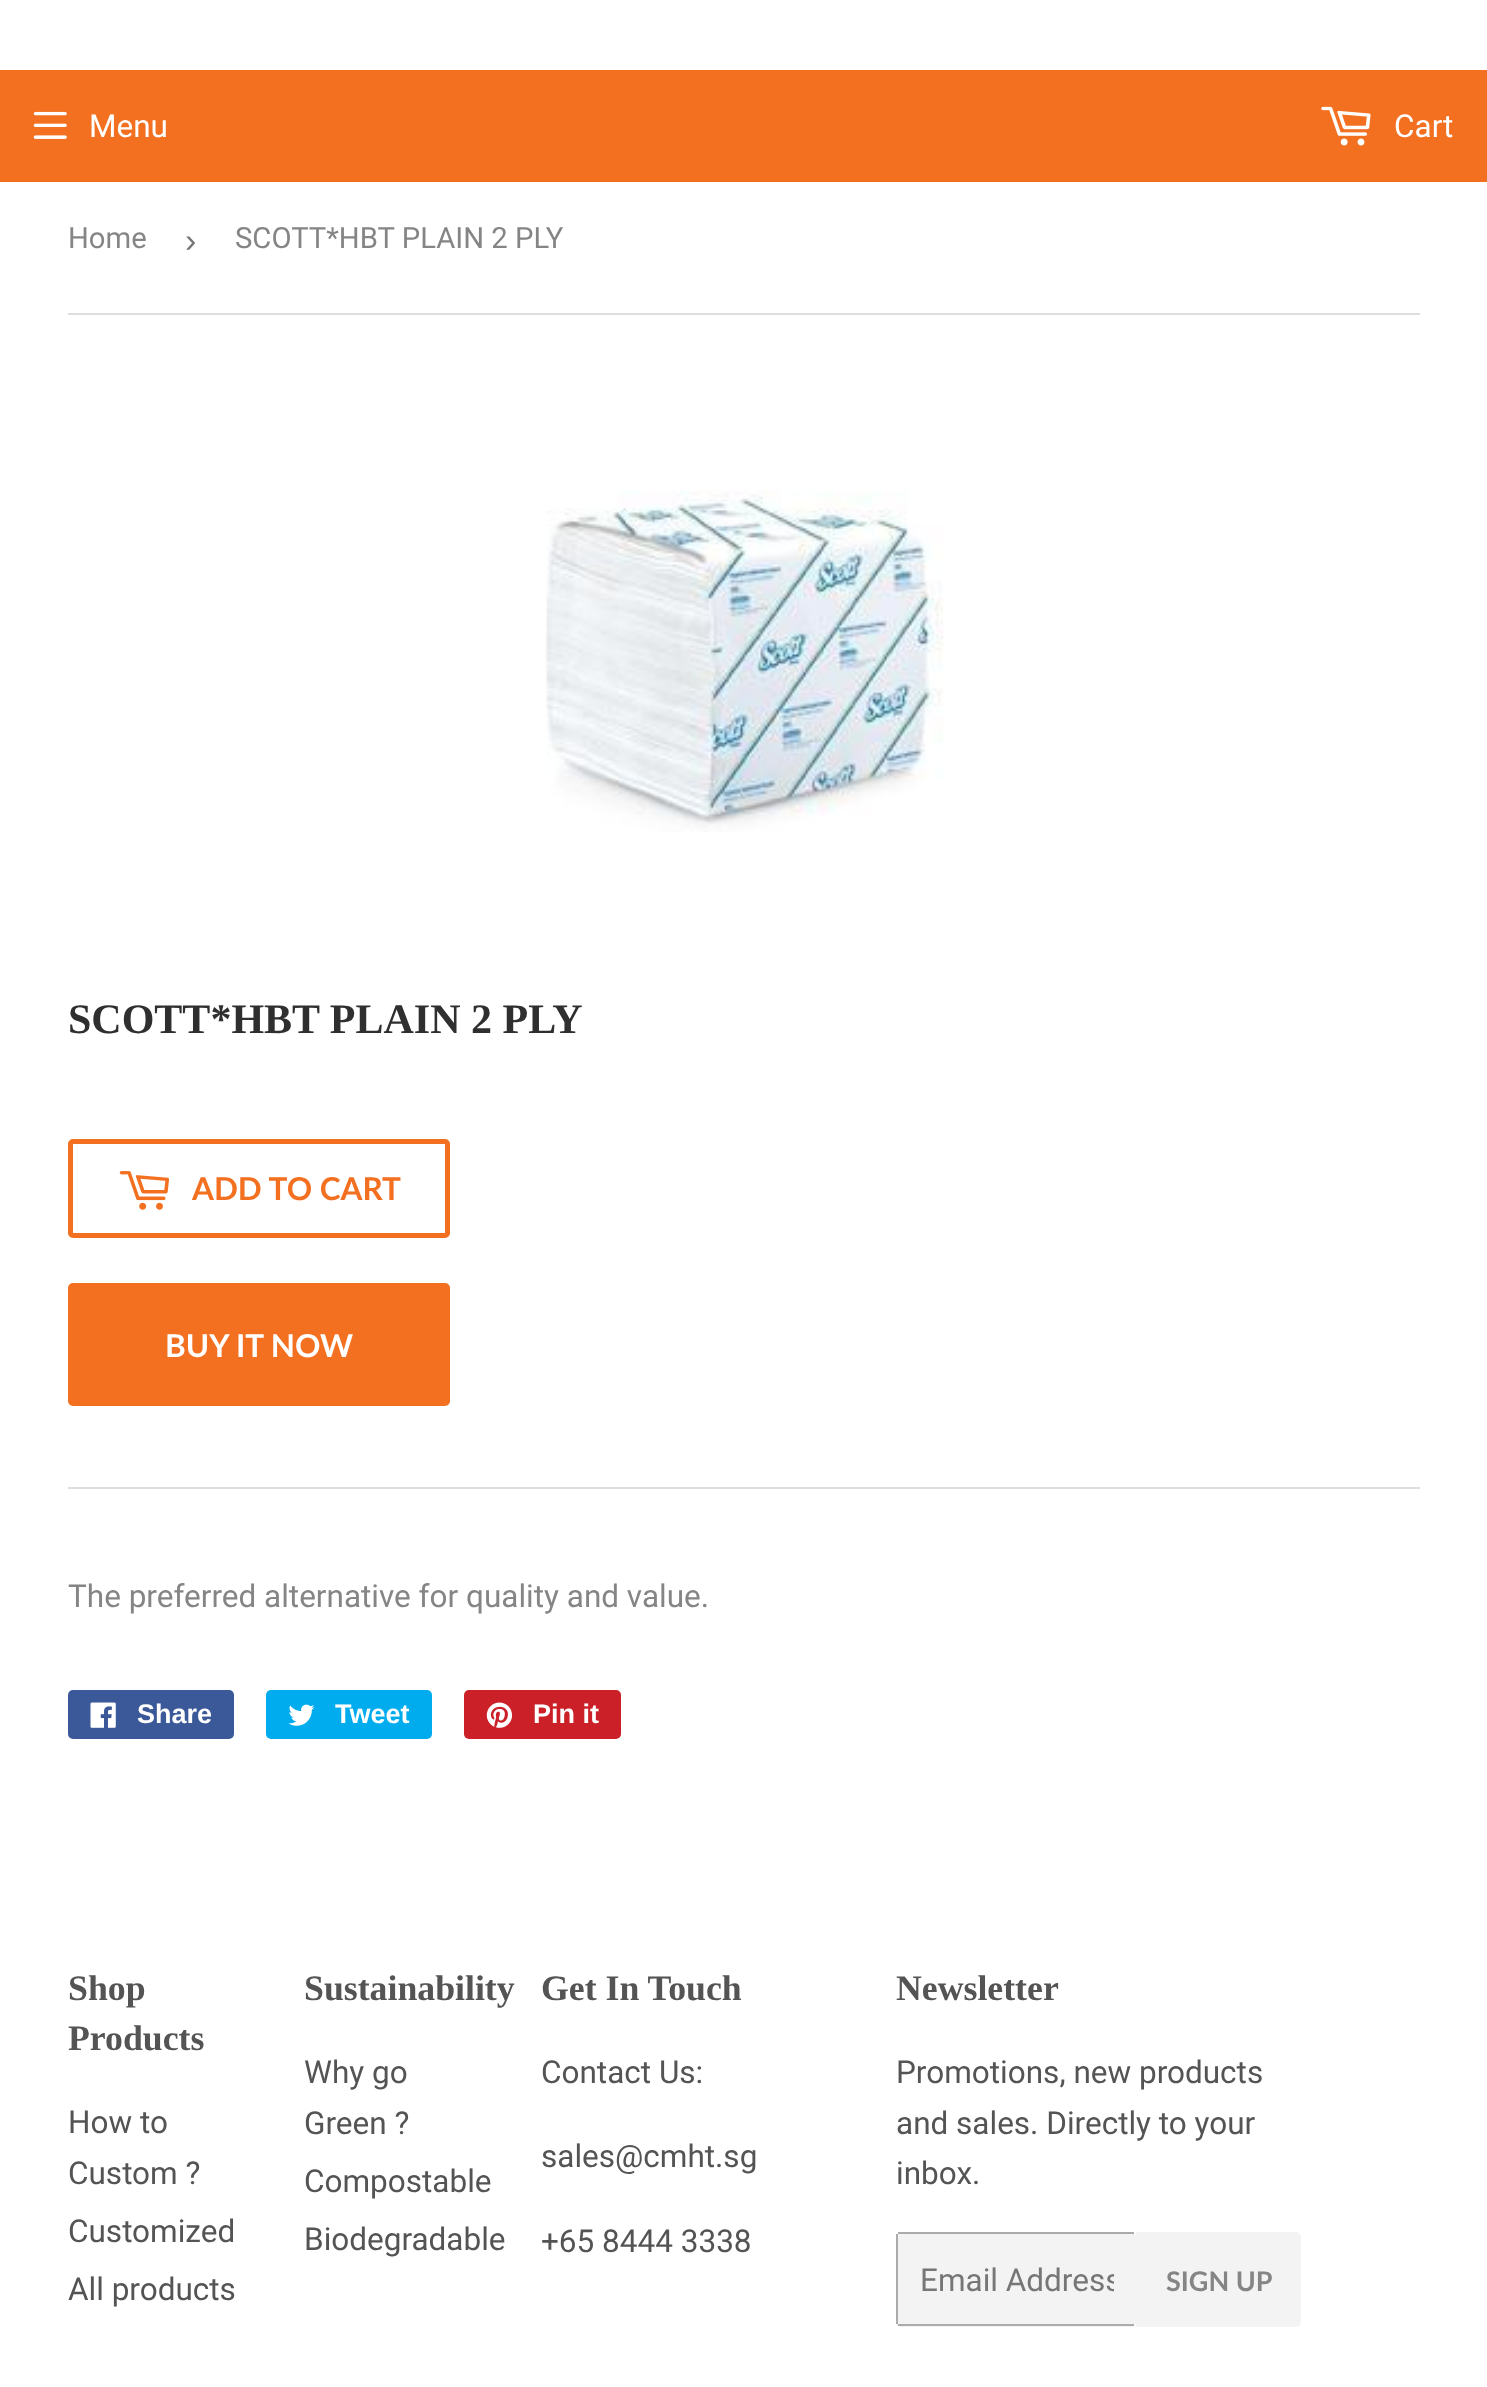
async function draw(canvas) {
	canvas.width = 1487;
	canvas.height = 2387;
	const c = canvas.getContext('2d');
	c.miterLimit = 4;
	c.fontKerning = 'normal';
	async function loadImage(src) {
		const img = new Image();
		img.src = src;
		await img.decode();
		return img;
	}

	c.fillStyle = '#fff';
	c.fillRect(0, 0, 1487, 2387);
	c.fillStyle = '#f37021';
	c.fillRect(0, 70, 1487, 112);
	c.drawImage(await loadImage('img1.png'), 33, 111, 34, 28);
	c.font = '31.5px Roboto';
	c.fillStyle = '#fff';
	c.fillText('Menu', 89, 137);
	c.drawImage(await loadImage('img2.png'), 1321, 106, 50, 40);
	c.fillText('Cart', 1394, 137);
	c.fillStyle = '#dedede';
	c.fillRect(68, 313, 1352, 2);
	c.font = '29.25px Roboto';
	c.fillStyle = '#858585';
	c.fillText('Home', 68, 248);
	c.font = '34px Liberation Sans';
	c.fillStyle = '#767676';
	c.fillText('›', 185, 252);
	c.font = '29.25px Roboto';
	c.fillStyle = '#858585';
	c.fillText('SCOTT*HBT PLAIN 2 PLY', 235, 248);
	c.drawImage(await loadImage('img3.png'), 545, 490, 399, 342);
	c.font = 'bold 42px Liberation Serif';
	c.fillStyle = '#2f2f2f';
	c.fillText('SCOTT*HBT PLAIN 2 PLY', 68, 1033);
	c.beginPath();
	c.roundRect(70.5, 1141.5, 377, 94, 2.5);
	c.strokeStyle = '#f37021';
	c.lineWidth = 5;
	c.stroke();
	c.drawImage(await loadImage('img4.png'), 119, 1171, 50, 39);
	c.font = 'bold 31.5px Lato';
	c.fillStyle = '#f37021';
	c.fillText('ADD TO CART', 192, 1200);
	c.beginPath();
	c.roundRect(68, 1283, 382, 123, 5);
	c.fill();
	c.fillStyle = '#fff';
	c.fillText('BUY IT NOW', 165, 1357);
	c.fillStyle = '#dedede';
	c.fillRect(68, 1487, 1352, 2);
	c.font = '31.5px Roboto';
	c.fillStyle = '#858585';
	c.fillText('The preferred alternative for quality and value.', 68, 1607);
	c.fillStyle = '#3b5998';
	c.beginPath();
	c.roundRect(68, 1690, 166, 49, 5);
	c.fill();
	c.drawImage(await loadImage('img5.png'), 90, 1702, 26, 26);
	c.font = 'bold 27px Liberation Sans';
	c.fillStyle = '#fff';
	c.fillText('Share', 137, 1723);
	c.fillStyle = '#00aced';
	c.beginPath();
	c.roundRect(266, 1690, 166, 49, 5);
	c.fill();
	c.drawImage(await loadImage('img6.png'), 288, 1704, 27, 22);
	c.fillStyle = '#fff';
	c.fillText('Tweet', 335, 1723);
	c.fillStyle = '#cb2027';
	c.beginPath();
	c.roundRect(464, 1690, 157, 49, 5);
	c.fill();
	c.drawImage(await loadImage('img7.png'), 486, 1702, 27, 26);
	c.fillStyle = '#fff';
	c.fillText('Pin it', 533, 1723);
	c.font = 'bold 35.75px Liberation Serif';
	c.fillStyle = '#545454';
	c.fillText('Shop', 68, 2000);
	c.fillText('Products', 68, 2050);
	c.font = '31.5px Roboto';
	for (const [text, x, y] of [
		['How to', 68, 2133],
		['Custom ?', 68, 2184],
		['Customized', 68, 2242],
		['All products', 68, 2300],
	]) {
		c.fillText(text, x, y);
	}
	c.font = 'bold 35.75px Liberation Serif';
	c.fillText('Sustainability', 304, 2000);
	c.font = '31.5px Roboto';
	for (const [text, x, y] of [
		['Why go', 304, 2083],
		['Green ?', 304, 2134],
		['Compostable', 304, 2192],
		['Biodegradable', 304, 2250],
	]) {
		c.fillText(text, x, y);
	}
	c.font = 'bold 35.75px Liberation Serif';
	c.fillText('Get In Touch', 541, 2000);
	c.font = '31.5px Roboto';
	for (const [text, x, y] of [
		['Contact Us:', 541, 2083],
		['sales@cmht.sg', 541, 2167],
		['+65 8444 3338', 541, 2252],
	]) {
		c.fillText(text, x, y);
	}
	c.font = 'bold 35.75px Liberation Serif';
	c.fillText('Newsletter', 896, 2000);
	c.font = '31.5px Roboto';
	for (const [text, x, y] of [
		['Promotions, new products', 896, 2083],
		['and sales. Directly to your', 896, 2134],
		['inbox.', 896, 2184],
	]) {
		c.fillText(text, x, y);
	}
	c.fillStyle = '#f3f3f3';
	c.beginPath();
	c.roundRect(896, 2232, 240, 95, 5);
	c.fill();
	for (const [x, y, w, h, color] of [
		[898, 2232, 236, 2, '#ababab'],
		[898, 2324, 236, 2, '#ababab'],
		[896, 2234, 2, 90, '#ababab'],
	]) {
		c.fillStyle = color;
		c.fillRect(x, y, w, h);
	}
	c.save();
	c.beginPath();
	c.rect(920, 2261, 194, 36);
	c.clip();
	c.fillStyle = '#767676';
	c.fillText('Email Address', 920, 2291);
	c.restore();
	c.fillStyle = '#f3f3f3';
	c.beginPath();
	c.roundRect(1136, 2232, 165, 95, [0, 5, 5, 0]);
	c.fill();
	c.font = 'bold 27px Lato';
	c.fillStyle = '#858585';
	c.fillText('SIGN UP', 1166, 2291);
}

draw(document.querySelector('canvas'));
